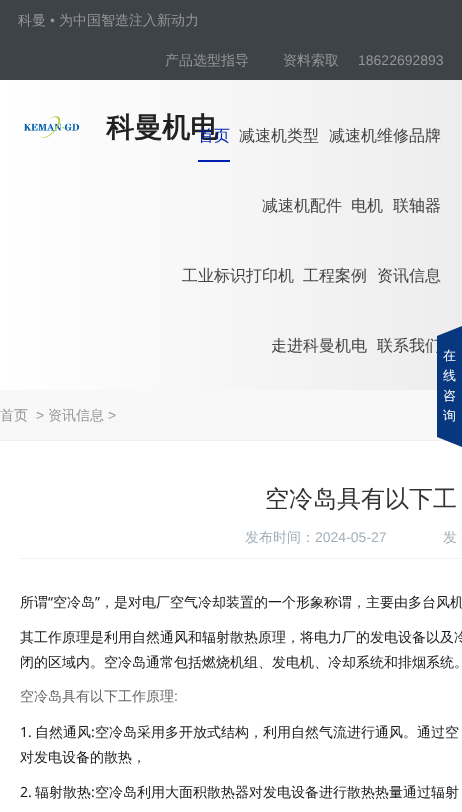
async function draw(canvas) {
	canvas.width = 462;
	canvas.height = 812;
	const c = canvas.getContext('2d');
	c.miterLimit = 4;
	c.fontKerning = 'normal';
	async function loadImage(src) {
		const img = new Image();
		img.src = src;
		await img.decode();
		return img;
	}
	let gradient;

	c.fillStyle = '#3e4348';
	c.fillRect(0, 0, 462, 812);
	c.font = '500 14px WenQuanYi Zen Hei';
	c.fillStyle = '#949697';
	c.fillText('科曼', 18, 25);
	c.font = '14px Liberation Sans';
	c.fillText('•', 50, 25);
	c.font = '500 14px WenQuanYi Zen Hei';
	for (const [text, x, y] of [
		['为中国智造注入新动力', 59, 25],
		['产品选型指导', 165, 65],
		['资料索取', 283, 65],
	]) {
		c.fillText(text, x, y);
	}
	c.font = '14px Liberation Sans';
	c.fillText('18622692893', 358, 65);
	gradient = c.createLinearGradient(0, 235, 462, 235);
	gradient.addColorStop(0, '#fff');
	gradient.addColorStop(1, '#ededed');
	c.fillStyle = gradient;
	c.fillRect(0, 80, 462, 310);
	c.drawImage(await loadImage('img1.png'), 23, 116, 57, 22);
	c.font = 'bold 28px WenQuanYi Zen Hei';
	c.fillStyle = '#212121';
	c.fillText('科曼机电', 106, 137);
	c.font = '500 16px WenQuanYi Zen Hei';
	c.fillStyle = '#001daf';
	c.fillText('首页', 198, 141);
	c.fillRect(198, 160, 32, 2);
	c.fillStyle = '#444';
	for (const [text, x, y] of [
		['减速机类型', 239, 141],
		['减速机维修品牌', 329, 141],
		['减速机配件', 262, 211],
		['电机', 351, 211],
		['联轴器', 393, 211],
		['工业标识打印机', 182, 281],
		['工程案例', 303, 281],
		['资讯信息', 377, 281],
		['走进科曼机电', 271, 351],
		['联系我们', 377, 351],
	]) {
		c.fillText(text, x, y);
	}
	for (const [x, y, w, h, color] of [
		[0, 390, 445, 50, '#f8f8f8'],
		[0, 441, 462, 371, '#fff'],
		[0, 440, 447, 1, '#f1f1f1'],
	]) {
		c.fillStyle = color;
		c.fillRect(x, y, w, h);
	}
	c.fillStyle = '#07377f';
	c.beginPath();
	c.moveTo(462, 326);
	c.lineTo(462, 447);
	c.lineTo(437, 437);
	c.lineTo(437, 336);
	c.closePath();
	c.fill();
	c.font = '500 13px WenQuanYi Zen Hei';
	c.fillStyle = '#fff';
	for (const [text, x, y] of [
		['在', 443, 360],
		['线', 443, 380],
		['咨', 443, 400],
		['询', 443, 420],
	]) {
		c.fillText(text, x, y);
	}
	c.font = '500 14px WenQuanYi Zen Hei';
	c.fillStyle = '#949697';
	c.fillText('首页', 0, 420);
	c.font = '14px Liberation Sans';
	c.fillText('>', 36, 420);
	c.font = '500 14px WenQuanYi Zen Hei';
	c.fillText('资讯信息', 48, 420);
	c.font = '14px Liberation Sans';
	c.fillText('>', 108, 420);
	c.font = '500 24px WenQuanYi Zen Hei';
	c.fillStyle = '#333';
	c.fillText('空冷岛具有以下工', 265, 507);
	c.fillStyle = '#f0f2f5';
	c.fillRect(20, 558, 442, 1);
	c.font = '500 14px WenQuanYi Zen Hei';
	c.fillStyle = '#a3afb7';
	c.fillText('发布时间：', 245, 542);
	c.font = '14px Liberation Sans';
	c.fillText('2024-05-27', 315, 542);
	c.font = '500 14px WenQuanYi Zen Hei';
	c.fillText('发', 443, 542);
	c.fillStyle = '#1a1a1a';
	c.fillText('所谓', 20, 607);
	c.font = '14px Noto Sans';
	c.fillText('“', 48, 607);
	c.font = '500 14px WenQuanYi Zen Hei';
	c.fillText('空冷岛', 53, 607);
	c.font = '14px Noto Sans';
	c.fillText('”', 95, 607);
	c.font = '500 14px WenQuanYi Zen Hei';
	for (const [text, x, y] of [
		['，是对电厂空气冷却装置的一个形象称谓，主要由多台风机', 100, 607],
		['其工作原理是利用自然通风和辐射散热原理，将电力厂的发电设备以及冷', 20, 642],
		['闭的区域内。空冷岛通常包括燃烧机组、发电机、冷却系统和排烟系统。', 20, 667],
	]) {
		c.fillText(text, x, y);
	}
	c.fillStyle = '#666';
	c.fillText('空冷岛具有以下工作原理', 20, 701);
	c.font = '14px Liberation Sans';
	c.fillText(':', 174, 701);
	c.font = '14px Noto Sans';
	c.fillStyle = '#1a1a1a';
	c.fillText('1.', 20, 737);
	c.font = '500 14px WenQuanYi Zen Hei';
	c.fillText('自然通风', 35, 737);
	c.font = '14px Noto Sans';
	c.fillText(':', 91, 737);
	c.font = '500 14px WenQuanYi Zen Hei';
	c.fillText('空冷岛采用多开放式结构，利用自然气流进行通风。通过空', 95, 737);
	c.fillText('对发电设备的散热，', 20, 762);
	c.font = '14px Noto Sans';
	c.fillText('2.', 20, 797);
	c.font = '500 14px WenQuanYi Zen Hei';
	c.fillText('辐射散热', 35, 797);
	c.font = '14px Noto Sans';
	c.fillText(':', 91, 797);
	c.font = '500 14px WenQuanYi Zen Hei';
	c.fillText('空冷岛利用大面积散热器对发电设备进行散热热量通过辐射', 95, 797);
}

draw(document.querySelector('canvas'));
